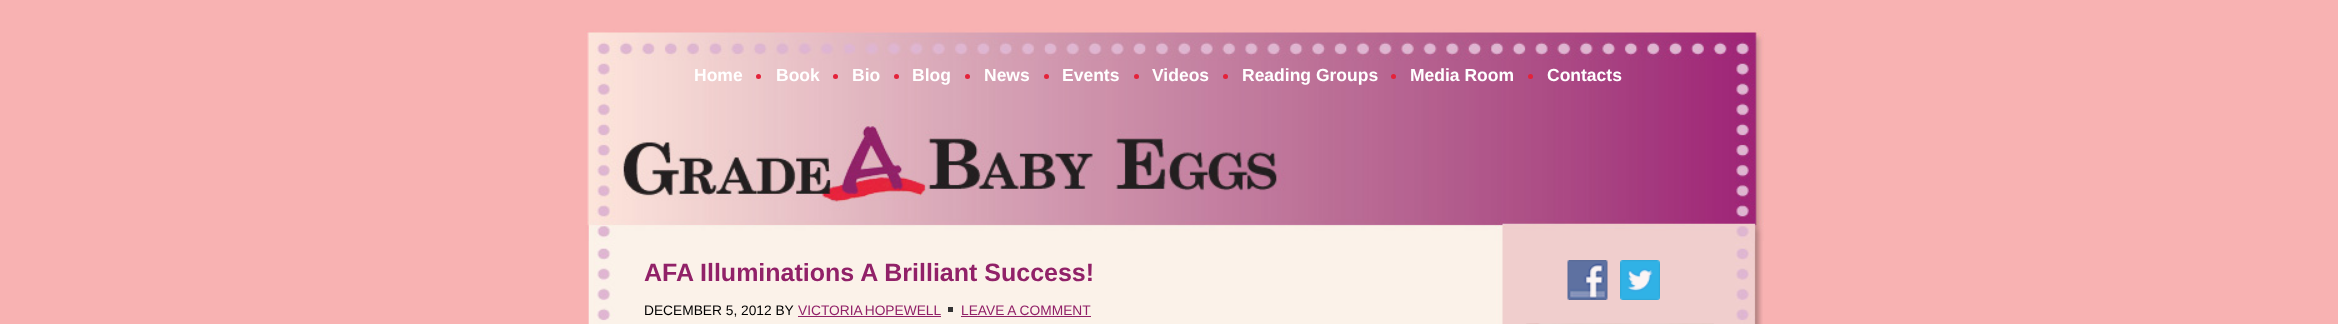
async function draw(canvas) {
	canvas.width = 2338;
	canvas.height = 324;
	const c = canvas.getContext('2d');
	c.miterLimit = 4;
	c.fontKerning = 'normal';
	async function loadImage(src) {
		const img = new Image();
		img.src = src;
		await img.decode();
		return img;
	}

	c.fillStyle = '#f8b2b2';
	c.fillRect(0, 0, 2338, 324);
	c.drawImage(await loadImage('img1.png'), 588, 241, 1175, 83);
	c.drawImage(await loadImage('img2.png'), 585, 0, 1180, 241);
	c.font = 'bold 17.5px Liberation Sans';
	c.fillStyle = '#fff';
	c.fillText('Home', 694, 81);
	c.fillStyle = '#e4223a';
	c.beginPath();
	c.arc(758.5, 76.5, 2.5, 0, 2 * Math.PI);
	c.fill();
	c.fillStyle = '#fff';
	c.fillText('Book', 776, 81);
	c.fillStyle = '#e4223a';
	c.beginPath();
	c.arc(835.5, 76.5, 2.5, 0, 2 * Math.PI);
	c.fill();
	c.fillStyle = '#fff';
	c.fillText('Bio', 852, 81);
	c.fillStyle = '#e4223a';
	c.beginPath();
	c.arc(896.5, 76.5, 2.5, 0, 2 * Math.PI);
	c.fill();
	c.fillStyle = '#fff';
	c.fillText('Blog', 912, 81);
	c.fillStyle = '#e4223a';
	c.beginPath();
	c.arc(967.5, 76.5, 2.5, 0, 2 * Math.PI);
	c.fill();
	c.fillStyle = '#fff';
	c.fillText('News', 984, 81);
	c.fillStyle = '#e4223a';
	c.beginPath();
	c.arc(1046.5, 76.5, 2.5, 0, 2 * Math.PI);
	c.fill();
	c.fillStyle = '#fff';
	c.fillText('Events', 1062, 81);
	c.fillStyle = '#e4223a';
	c.beginPath();
	c.arc(1136.5, 76.5, 2.5, 0, 2 * Math.PI);
	c.fill();
	c.fillStyle = '#fff';
	c.fillText('Videos', 1152, 81);
	c.fillStyle = '#e4223a';
	c.beginPath();
	c.arc(1225.5, 76.5, 2.5, 0, 2 * Math.PI);
	c.fill();
	c.fillStyle = '#fff';
	c.fillText('Reading Groups', 1242, 81);
	c.fillStyle = '#e4223a';
	c.beginPath();
	c.arc(1393.5, 76.5, 2.5, 0, 2 * Math.PI);
	c.fill();
	c.fillStyle = '#fff';
	c.fillText('Media Room', 1410, 81);
	c.fillStyle = '#e4223a';
	c.beginPath();
	c.arc(1530.5, 76.5, 2.5, 0, 2 * Math.PI);
	c.fill();
	c.fillStyle = '#fff';
	c.fillText('Contacts', 1547, 81);
	c.font = 'bold 25px Liberation Sans';
	c.fillStyle = '#912168';
	c.fillText('AFA Illuminations A Brilliant Success!', 644, 281);
	c.font = '13.75px Liberation Sans';
	c.fillStyle = '#000';
	c.fillText('DECEMBER 5, 2012 BY', 644, 315);
	c.wordSpacing = '-1px';
	c.fillStyle = '#912168';
	c.fillText('VICTORIA HOPEWELL', 798, 315);
	c.fillRect(798, 316, 143, 1);
	c.wordSpacing = '0px';
	c.fillText('LEAVE A COMMENT', 961, 315);
	c.fillStyle = '#333';
	c.fillRect(948, 307, 5, 5);
	c.fillStyle = '#912168';
	c.fillRect(961, 316, 130, 1);
	c.drawImage(await loadImage('img3.png'), 1567, 260, 41, 40);
	c.drawImage(await loadImage('img4.png'), 1620, 260, 40, 40);
	c.drawImage(await loadImage('img5.png'), 1526, 323, 188, 1);
}

draw(document.querySelector('canvas'));
